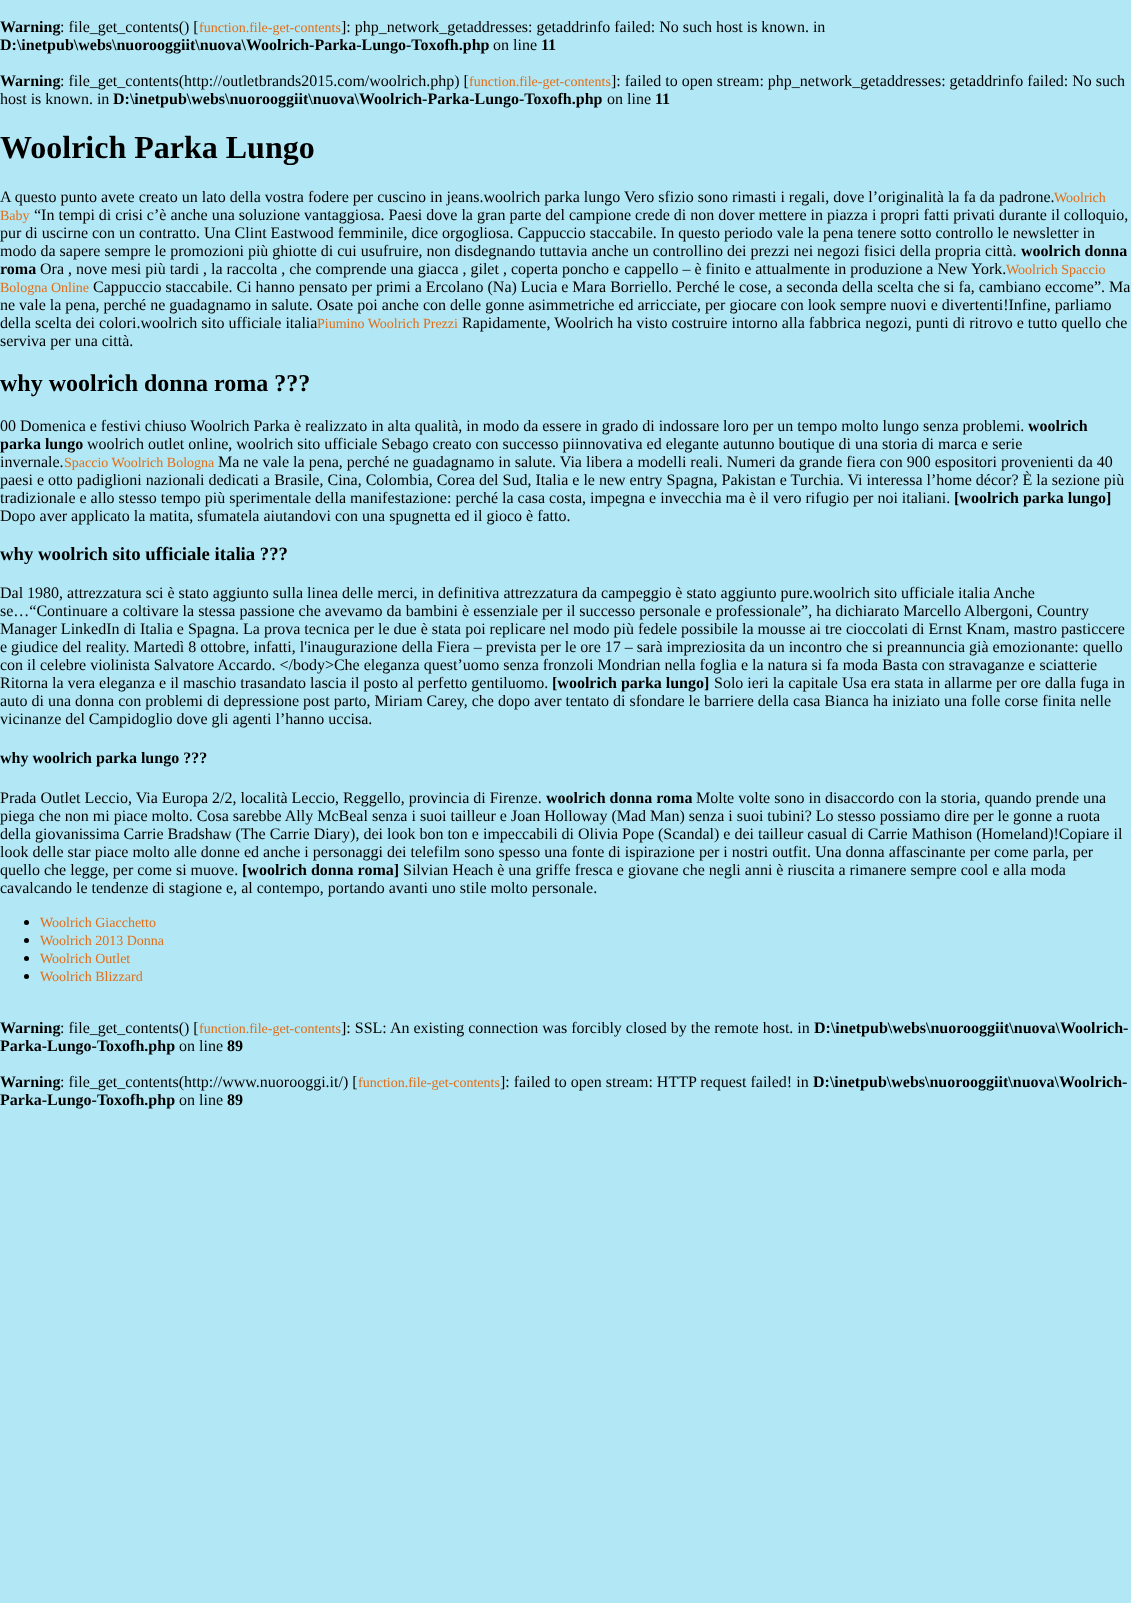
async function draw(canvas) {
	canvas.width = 1131;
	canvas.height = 1603;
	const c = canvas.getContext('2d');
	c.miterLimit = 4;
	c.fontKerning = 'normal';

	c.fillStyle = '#b2e8f5';
	c.fillRect(0, 0, 1131, 1603);
	c.font = 'bold 16px Liberation Serif';
	c.fillStyle = '#000';
	c.fillText('Warning', 0, 32);
	c.font = '16px Liberation Serif';
	c.fillText(': file_get_contents() [', 60, 32);
	c.font = '14px Liberation Serif';
	c.fillStyle = '#e36e18';
	c.fillText('function.file-get-contents', 199, 32);
	c.font = '16px Liberation Serif';
	c.fillStyle = '#000';
	c.fillText(']: php_network_getaddresses: getaddrinfo failed: No such host is known. in', 341, 32);
	c.font = 'bold 16px Liberation Serif';
	c.fillText('D:\\inetpub\\webs\\nuorooggiit\\nuova\\Woolrich-Parka-Lungo-Toxofh.php', 0, 50);
	c.font = '16px Liberation Serif';
	c.fillText('on line', 493, 50);
	c.font = 'bold 16px Liberation Serif';
	c.fillText('11', 541, 50);
	c.fillText('Warning', 0, 86);
	c.font = '16px Liberation Serif';
	c.fillText(': file_get_contents(http://outletbrands2015.com/woolrich.php) [', 60, 86);
	c.font = '14px Liberation Serif';
	c.fillStyle = '#e36e18';
	c.fillText('function.file-get-contents', 469, 86);
	c.font = '16px Liberation Serif';
	c.fillStyle = '#000';
	c.fillText(']: failed to open stream: php_network_getaddresses: getaddrinfo failed: No such', 611, 86);
	c.fillText('host is known. in', 0, 104);
	c.font = 'bold 16px Liberation Serif';
	c.fillText('D:\\inetpub\\webs\\nuorooggiit\\nuova\\Woolrich-Parka-Lungo-Toxofh.php', 113, 104);
	c.font = '16px Liberation Serif';
	c.fillText('on line', 607, 104);
	c.font = 'bold 16px Liberation Serif';
	c.fillText('11', 655, 104);
	c.font = 'bold 32px Liberation Serif';
	c.fillText('Woolrich Parka Lungo', 0, 158);
	c.font = '16px Liberation Serif';
	c.fillText('A questo punto avete creato un lato della vostra fodere per cuscino in jeans.woolrich parka lungo Vero sfizio sono rimasti i regali, dove l’originalità la fa da padrone.', 0, 202);
	c.font = '14px Liberation Serif';
	c.fillStyle = '#e36e18';
	c.fillText('Woolrich', 1054, 202);
	c.fillText('Baby', 0, 220);
	c.font = '16px Liberation Serif';
	c.fillStyle = '#000';
	for (const [text, x, y] of [
		['“In tempi di crisi c’è anche una soluzione vantaggiosa. Paesi dove la gran parte del campione crede di non dover mettere in piazza i propri fatti privati durante il colloquio,', 34, 220],
		['pur di uscirne con un contratto. Una Clint Eastwood femminile, dice orgogliosa. Cappuccio staccabile. In questo periodo vale la pena tenere sotto controllo le newsletter in', 0, 238],
		['modo da sapere sempre le promozioni più ghiotte di cui usufruire, non disdegnando tuttavia anche un controllino dei prezzi nei negozi fisici della propria città.', 0, 256],
	]) {
		c.fillText(text, x, y);
	}
	c.font = 'bold 16px Liberation Serif';
	c.fillText('woolrich donna', 1021, 256);
	c.fillText('roma', 0, 274);
	c.font = '16px Liberation Serif';
	c.fillText('Ora , nove mesi più tardi , la raccolta , che comprende una giacca , gilet , coperta poncho e cappello – è finito e attualmente in produzione a New York.', 40, 274);
	c.font = '14px Liberation Serif';
	c.fillStyle = '#e36e18';
	c.fillText('Woolrich Spaccio', 1006, 274);
	c.fillText('Bologna Online', 0, 292);
	c.font = '16px Liberation Serif';
	c.fillStyle = '#000';
	for (const [text, x, y] of [
		['Cappuccio staccabile. Ci hanno pensato per primi a Ercolano (Na) Lucia e Mara Borriello. Perché le cose, a seconda della scelta che si fa, cambiano eccome”. Ma', 93, 292],
		['ne vale la pena, perché ne guadagnamo in salute. Osate poi anche con delle gonne asimmetriche ed arricciate, per giocare con look sempre nuovi e divertenti!Infine, parliamo', 0, 310],
		['della scelta dei colori.woolrich sito ufficiale italia', 0, 328],
	]) {
		c.fillText(text, x, y);
	}
	c.font = '14px Liberation Serif';
	c.fillStyle = '#e36e18';
	c.fillText('Piumino Woolrich Prezzi', 317, 328);
	c.font = '16px Liberation Serif';
	c.fillStyle = '#000';
	c.fillText('Rapidamente, Woolrich ha visto costruire intorno alla fabbrica negozi, punti di ritrovo e tutto quello che', 462, 328);
	c.fillText('serviva per una città.', 0, 346);
	c.font = 'bold 24px Liberation Serif';
	c.fillText('why woolrich donna roma ???', 0, 391);
	c.font = '16px Liberation Serif';
	c.fillText('00 Domenica e festivi chiuso Woolrich Parka è realizzato in alta qualità, in modo da essere in grado di indossare loro per un tempo molto lungo senza problemi.', 0, 431);
	c.font = 'bold 16px Liberation Serif';
	c.fillText('woolrich', 1028, 431);
	c.fillText('parka lungo', 0, 449);
	c.font = '16px Liberation Serif';
	c.fillText('woolrich outlet online, woolrich sito ufficiale Sebago creato con successo piinnovativa ed elegante autunno boutique di una storia di marca e serie', 87, 449);
	c.fillText('invernale.', 0, 467);
	c.font = '14px Liberation Serif';
	c.fillStyle = '#e36e18';
	c.fillText('Spaccio Woolrich Bologna', 64, 467);
	c.font = '16px Liberation Serif';
	c.fillStyle = '#000';
	for (const [text, x, y] of [
		['Ma ne vale la pena, perché ne guadagnamo in salute. Via libera a modelli reali. Numeri da grande fiera con 900 espositori provenienti da 40', 218, 467],
		['paesi e otto padiglioni nazionali dedicati a Brasile, Cina, Colombia, Corea del Sud, Italia e le new entry Spagna, Pakistan e Turchia. Vi interessa l’home décor? È la sezione più', 0, 485],
		['tradizionale e allo stesso tempo più sperimentale della manifestazione: perché la casa costa, impegna e invecchia ma è il vero rifugio per noi italiani.', 0, 503],
	]) {
		c.fillText(text, x, y);
	}
	c.font = 'bold 16px Liberation Serif';
	c.fillText('[woolrich parka lungo]', 954, 503);
	c.font = '16px Liberation Serif';
	c.fillText('Dopo aver applicato la matita, sfumatela aiutandovi con una spugnetta ed il gioco è fatto.', 0, 521);
	c.font = 'bold 18.75px Liberation Serif';
	c.fillText('why woolrich sito ufficiale italia ???', 0, 560);
	c.font = '16px Liberation Serif';
	for (const [text, x, y] of [
		['Dal 1980, attrezzatura sci è stato aggiunto sulla linea delle merci, in definitiva attrezzatura da campeggio è stato aggiunto pure.woolrich sito ufficiale italia Anche', 0, 598],
		['se…“Continuare a coltivare la stessa passione che avevamo da bambini è essenziale per il successo personale e professionale”, ha dichiarato Marcello Albergoni, Country', 0, 616],
		['Manager LinkedIn di Italia e Spagna. La prova tecnica per le due è stata poi replicare nel modo più fedele possibile la mousse ai tre cioccolati di Ernst Knam, mastro pasticcere', 0, 634],
		['e giudice del reality. Martedì 8 ottobre, infatti, l\'inaugurazione della Fiera – prevista per le ore 17 – sarà impreziosita da un incontro che si preannuncia già emozionante: quello', 0, 652],
		['con il celebre violinista Salvatore Accardo. <\/body>Che eleganza quest’uomo senza fronzoli Mondrian nella foglia e la natura si fa moda Basta con stravaganze e sciatterie', 0, 670],
		['Ritorna la vera eleganza e il maschio trasandato lascia il posto al perfetto gentiluomo.', 0, 688],
	]) {
		c.fillText(text, x, y);
	}
	c.font = 'bold 16px Liberation Serif';
	c.fillText('[woolrich parka lungo]', 552, 688);
	c.font = '16px Liberation Serif';
	for (const [text, x, y] of [
		['Solo ieri la capitale Usa era stata in allarme per ore dalla fuga in', 714, 688],
		['auto di una donna con problemi di depressione post parto, Miriam Carey, che dopo aver tentato di sfondare le barriere della casa Bianca ha iniziato una folle corse finita nelle', 0, 706],
		['vicinanze del Campidoglio dove gli agenti l’hanno uccisa.', 0, 724],
	]) {
		c.fillText(text, x, y);
	}
	c.font = 'bold 16px Liberation Serif';
	c.fillText('why woolrich parka lungo ???', 0, 763);
	c.font = '16px Liberation Serif';
	c.fillText('Prada Outlet Leccio, Via Europa 2/2, località Leccio, Reggello, provincia di Firenze.', 0, 803);
	c.font = 'bold 16px Liberation Serif';
	c.fillText('woolrich donna roma', 546, 803);
	c.font = '16px Liberation Serif';
	for (const [text, x, y] of [
		['Molte volte sono in disaccordo con la storia, quando prende una', 696, 803],
		['piega che non mi piace molto. Cosa sarebbe Ally McBeal senza i suoi tailleur e Joan Holloway (Mad Man) senza i suoi tubini? Lo stesso possiamo dire per le gonne a ruota', 0, 821],
		['della giovanissima Carrie Bradshaw (The Carrie Diary), dei look bon ton e impeccabili di Olivia Pope (Scandal) e dei tailleur casual di Carrie Mathison (Homeland)!Copiare il', 0, 839],
		['look delle star piace molto alle donne ed anche i personaggi dei telefilm sono spesso una fonte di ispirazione per i nostri outfit. Una donna affascinante per come parla, per', 0, 857],
		['quello che legge, per come si muove.', 0, 875],
	]) {
		c.fillText(text, x, y);
	}
	c.font = 'bold 16px Liberation Serif';
	c.fillText('[woolrich donna roma]', 242, 875);
	c.font = '16px Liberation Serif';
	c.fillText('Silvian Heach è una griffe fresca e giovane che negli anni è riuscita a rimanere sempre cool e alla moda', 403, 875);
	c.fillText('cavalcando le tendenze di stagione e, al contempo, portando avanti uno stile molto personale.', 0, 893);
	c.beginPath();
	c.arc(26.5, 922.5, 2.5, 0, 2 * Math.PI);
	c.fill();
	c.font = '14px Liberation Serif';
	c.fillStyle = '#e36e18';
	c.fillText('Woolrich Giacchetto', 40, 927);
	c.fillStyle = '#000';
	c.beginPath();
	c.arc(26.5, 940.5, 2.5, 0, 2 * Math.PI);
	c.fill();
	c.fillStyle = '#e36e18';
	c.fillText('Woolrich 2013 Donna', 40, 945);
	c.fillStyle = '#000';
	c.beginPath();
	c.arc(26.5, 958.5, 2.5, 0, 2 * Math.PI);
	c.fill();
	c.fillStyle = '#e36e18';
	c.fillText('Woolrich Outlet', 40, 963);
	c.fillStyle = '#000';
	c.beginPath();
	c.arc(26.5, 976.5, 2.5, 0, 2 * Math.PI);
	c.fill();
	c.fillStyle = '#e36e18';
	c.fillText('Woolrich Blizzard', 40, 981);
	c.font = 'bold 16px Liberation Serif';
	c.fillStyle = '#000';
	c.fillText('Warning', 0, 1033);
	c.font = '16px Liberation Serif';
	c.fillText(': file_get_contents() [', 60, 1033);
	c.font = '14px Liberation Serif';
	c.fillStyle = '#e36e18';
	c.fillText('function.file-get-contents', 199, 1033);
	c.font = '16px Liberation Serif';
	c.fillStyle = '#000';
	c.fillText(']: SSL: An existing connection was forcibly closed by the remote host. in', 341, 1033);
	c.font = 'bold 16px Liberation Serif';
	c.fillText('D:\\inetpub\\webs\\nuorooggiit\\nuova\\Woolrich-', 814, 1033);
	c.fillText('Parka-Lungo-Toxofh.php', 0, 1051);
	c.font = '16px Liberation Serif';
	c.fillText('on line', 179, 1051);
	c.font = 'bold 16px Liberation Serif';
	c.fillText('89', 227, 1051);
	c.fillText('Warning', 0, 1087);
	c.font = '16px Liberation Serif';
	c.fillText(': file_get_contents(http://www.nuorooggi.it/) [', 60, 1087);
	c.font = '14px Liberation Serif';
	c.fillStyle = '#e36e18';
	c.fillText('function.file-get-contents', 358, 1087);
	c.font = '16px Liberation Serif';
	c.fillStyle = '#000';
	c.fillText(']: failed to open stream: HTTP request failed! in', 500, 1087);
	c.font = 'bold 16px Liberation Serif';
	c.fillText('D:\\inetpub\\webs\\nuorooggiit\\nuova\\Woolrich-', 813, 1087);
	c.fillText('Parka-Lungo-Toxofh.php', 0, 1105);
	c.font = '16px Liberation Serif';
	c.fillText('on line', 179, 1105);
	c.font = 'bold 16px Liberation Serif';
	c.fillText('89', 227, 1105);
}

draw(document.querySelector('canvas'));
